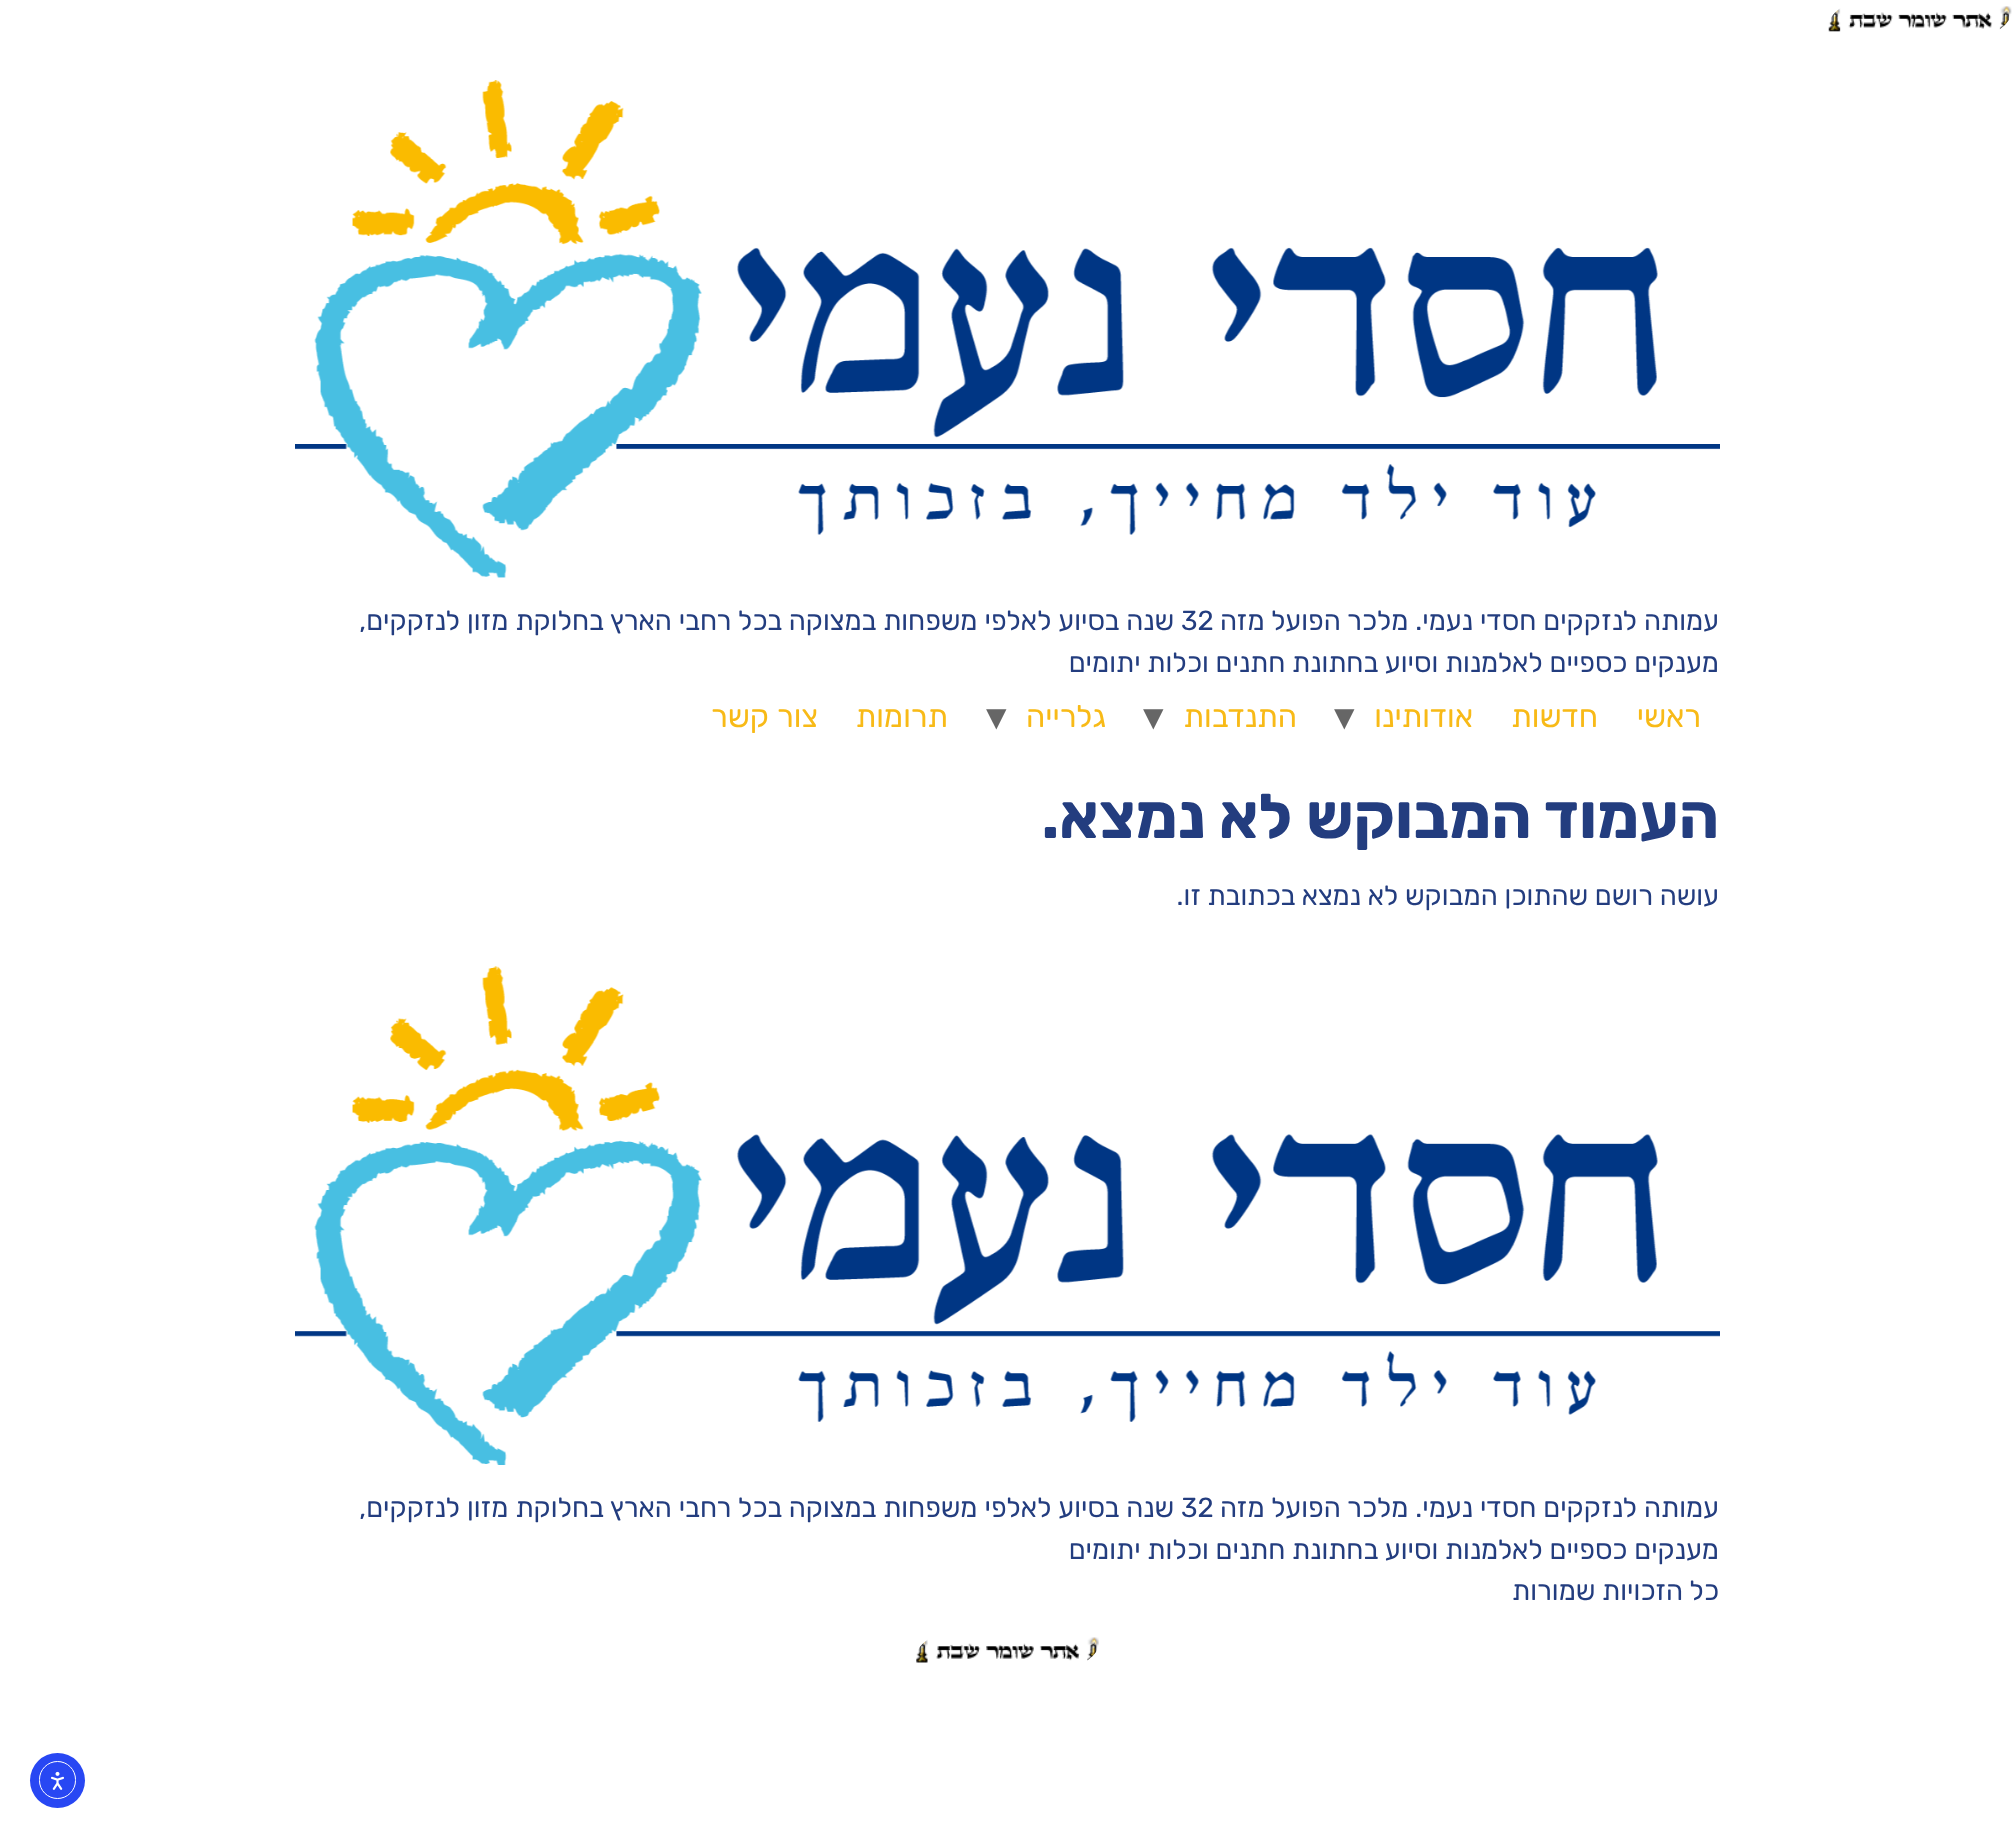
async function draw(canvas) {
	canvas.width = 2013;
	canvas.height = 1837;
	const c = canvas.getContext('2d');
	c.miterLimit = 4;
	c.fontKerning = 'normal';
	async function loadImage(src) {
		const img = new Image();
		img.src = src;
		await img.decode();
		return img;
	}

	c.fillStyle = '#fff';
	c.fillRect(0, 0, 2013, 1837);
	c.drawImage(await loadImage('img1.png'), 1828, 6, 184, 26);
	c.drawImage(await loadImage('img2.png'), 295, 80, 1425, 498);
	c.wordSpacing = '0.25px';
	c.direction = 'rtl';
	c.font = '27.5px Rubik';
	c.fillStyle = '#233d7f';
	c.fillText('עמותה לנזקקים חסדי נעמי. מלכר הפועל מזה', 1719, 630);
	c.wordSpacing = '0px';
	c.direction = 'ltr';
	c.fillText('32', 1181, 630);
	c.wordSpacing = '0.25px';
	c.direction = 'rtl';
	c.fillText('שנה בסיוע לאלפי משפחות במצוקה בכל רחבי הארץ בחלוקת מזון לנזקקים,', 1174, 630);
	c.wordSpacing = '0px';
	c.fillText('מענקים כספיים לאלמנות וסיוע בחתונת חתנים וכלות יתומים', 1719, 672);
	c.font = '31px Rubik';
	c.fillStyle = '#f8ba17';
	for (const [text, x, y] of [
		['ראשי', 1701, 727],
		['חדשות', 1598, 727],
		['אודותינו', 1473, 727],
	]) {
		c.fillText(text, x, y);
	}
	c.direction = 'ltr';
	c.font = '41px DejaVu Sans';
	c.fillStyle = '#666';
	c.fillText('▾', 1334, 730);
	c.direction = 'rtl';
	c.font = '31px Rubik';
	c.fillStyle = '#f8ba17';
	c.fillText('התנדבות', 1297, 727);
	c.direction = 'ltr';
	c.font = '41px DejaVu Sans';
	c.fillStyle = '#666';
	c.fillText('▾', 1143, 730);
	c.direction = 'rtl';
	c.font = '31px Rubik';
	c.fillStyle = '#f8ba17';
	c.fillText('גלרייה', 1106, 727);
	c.direction = 'ltr';
	c.font = '41px DejaVu Sans';
	c.fillStyle = '#666';
	c.fillText('▾', 986, 730);
	c.direction = 'rtl';
	c.font = '31px Rubik';
	c.fillStyle = '#f8ba17';
	c.fillText('תרומות', 948, 727);
	c.wordSpacing = '1px';
	c.fillText('צור קשר', 818, 727);
	c.wordSpacing = '0.5px';
	c.font = 'bold 62.5px Rubik';
	c.fillStyle = '#233d7f';
	c.fillText('העמוד המבוקש לא נמצא.', 1719, 838);
	c.wordSpacing = '0px';
	c.font = '27.5px Rubik';
	c.fillText('עושה רושם שהתוכן המבוקש לא נמצא בכתובת זו.', 1719, 905);
	c.drawImage(await loadImage('img3.png'), 295, 966, 1425, 499);
	c.wordSpacing = '0.25px';
	c.fillText('עמותה לנזקקים חסדי נעמי. מלכר הפועל מזה', 1719, 1517);
	c.wordSpacing = '0px';
	c.direction = 'ltr';
	c.fillText('32', 1181, 1517);
	c.wordSpacing = '0.25px';
	c.direction = 'rtl';
	c.fillText('שנה בסיוע לאלפי משפחות במצוקה בכל רחבי הארץ בחלוקת מזון לנזקקים,', 1174, 1517);
	c.wordSpacing = '0px';
	c.fillText('מענקים כספיים לאלמנות וסיוע בחתונת חתנים וכלות יתומים', 1719, 1559);
	c.fillText('כל הזכויות שמורות', 1719, 1600);
	c.drawImage(await loadImage('img4.png'), 916, 1637, 183, 26);
	c.fillStyle = '#2847f3';
	c.beginPath();
	c.arc(57.5, 1780.5, 27.5, 0, 2 * Math.PI);
	c.fill();
	c.beginPath();
	c.roundRect(39.5, 1761.5, 36, 37, 18);
	c.strokeStyle = '#fff';
	c.stroke();
	c.drawImage(await loadImage('img5.png'), 51, 1771, 13, 19);
}

draw(document.querySelector('canvas'));
